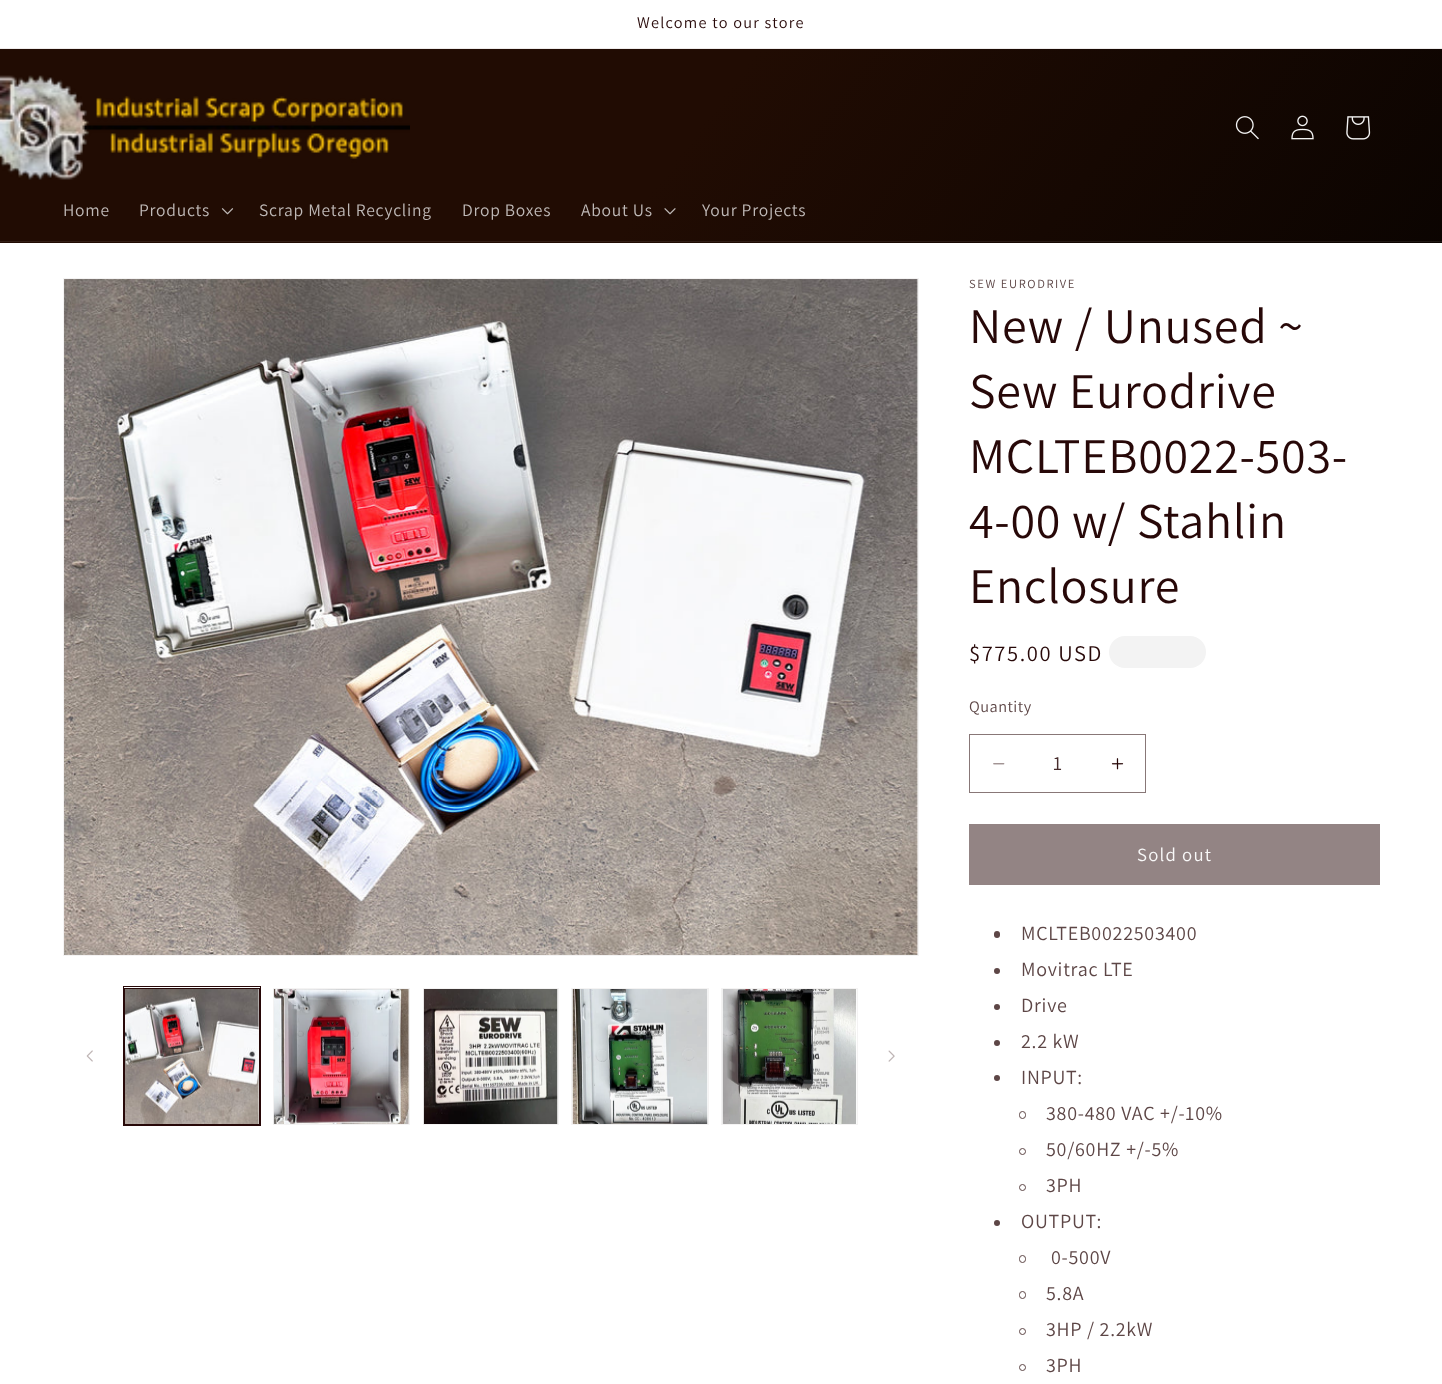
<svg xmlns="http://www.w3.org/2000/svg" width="1442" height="1384">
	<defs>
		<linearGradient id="g1" gradientUnits="userSpaceOnUse" x1="-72" y1="95" x2="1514" y2="1290"><stop offset="0.32" stop-color="#210C03" /><stop offset="0.83" stop-color="#000000" /></linearGradient>
		<linearGradient id="g2" gradientUnits="userSpaceOnUse" x1="-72" y1="95" x2="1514" y2="1290"><stop offset="0.32" stop-color="#321E16" /><stop offset="0.83" stop-color="#131313" /></linearGradient>
	</defs>
	<rect width="100%" height="100%" fill="#FFFFFF" />
	<rect x="0" y="48" width="1442" height="1" fill="#EEEBEB" />
	<text x="637" y="28" font-family="Assistant" font-size="16.25" letter-spacing="1.25" fill="#270808">Welcome to our store</text>
	<rect x="0" y="49" width="1442" height="194" fill="url(#g1)" />
	<rect x="0" y="241" width="1442" height="1" fill="url(#g2)" />
	<image x="0" y="75" width="410" height="105" href="assets/img1.png" />
	<image x="1235" y="116" width="24" height="24" href="assets/img2.png" />
	<image x="1291" y="115" width="23" height="25" href="assets/img3.png" />
	<image x="1346" y="116" width="25" height="24" href="assets/img4.png" />
	<g font-family="Assistant" font-size="17.5" letter-spacing="0.75" fill="#BFB9B7">
		<text x="63" y="216">Home</text>
		<text x="139" y="216">Products</text>
	</g>
	<image x="221" y="208" width="13" height="7" href="assets/img5.png" />
	<g font-family="Assistant" font-size="17.5" letter-spacing="0.75" fill="#BFB9B7">
		<text x="259" y="216">Scrap Metal Recycling</text>
		<text x="462" y="216">Drop Boxes</text>
		<text x="581" y="216">About Us</text>
	</g>
	<image x="664" y="208" width="12" height="7" href="assets/img6.png" />
	<text x="702" y="216" font-family="Assistant" font-size="17.5" letter-spacing="0.75" fill="#BFB9B7">Your Projects</text>
	<rect x="63.5" y="278.5" width="855" height="677" fill="none" stroke="#F4F3F3" />
	<image x="64" y="279" width="854" height="676" href="assets/img7.png" />
	<image x="86" y="1050" width="7" height="12" href="assets/img8.png" />
	<rect x="123.5" y="986.5" width="137" height="139" fill="none" stroke="#270808" />
	<rect x="124.5" y="988.5" width="135" height="136" fill="none" stroke="#270808" />
	<image x="125" y="989" width="134" height="135" href="assets/img9.png" />
	<rect x="273.5" y="988.5" width="136" height="136" fill="none" stroke="#F4F3F3" />
	<image x="273" y="989" width="136" height="135" href="assets/img10.png" />
	<rect x="423.5" y="988.5" width="135" height="136" fill="none" stroke="#F4F3F3" />
	<image x="423" y="989" width="135" height="135" href="assets/img11.png" />
	<rect x="571.5" y="988.5" width="137" height="136" fill="none" stroke="#F4F3F3" />
	<image x="572" y="989" width="136" height="135" href="assets/img12.png" />
	<rect x="721.5" y="988.5" width="136" height="136" fill="none" stroke="#F4F3F3" />
	<image x="722" y="989" width="135" height="135" href="assets/img13.png" />
	<image x="888" y="1050" width="7" height="12" href="assets/img14.png" />
	<text x="969" y="288" font-family="Assistant" font-size="12.5" letter-spacing="1.6" fill="#5D4646">SEW EURODRIVE</text>
	<g font-family="Assistant" font-size="50" letter-spacing="0.75" fill="#270808">
		<text x="969" y="343">New / Unused ~</text>
		<text x="969" y="408">Sew Eurodrive</text>
		<text x="969" y="473">MCLTEB0022-503-</text>
		<text x="969" y="538">4-00 w/ Stahlin</text>
		<text x="969" y="603">Enclosure</text>
	</g>
	<text x="969" y="661" font-family="Assistant" font-size="22.5" letter-spacing="1.6" fill="#270808">$775.00 USD</text>
	<rect x="1109" y="636" width="97" height="32" rx="16" fill="#F3F3F3" />
	<text x="969" y="712" font-family="Assistant" font-size="16.25" letter-spacing="0.5" fill="#5D4646">Quantity</text>
	<image x="993" y="763" width="12" height="2" href="assets/img15.png" />
	<image x="1111" y="758" width="13" height="12" href="assets/img16.png" />
	<rect x="969.5" y="734.5" width="176" height="58" fill="none" stroke="#887777" />
	<text x="1053" y="770" font-family="Assistant" font-size="20" fill="#472D2D">1</text>
	<rect x="969" y="824" width="411" height="61" fill="#938484" />
	<text x="1137" y="861" font-family="Assistant" font-size="18.75" letter-spacing="1.25" fill="#F9F9F9">Sold out</text>
	<rect x="994" y="931" width="6" height="7" rx="3" fill="#5D4646" />
	<text x="1021" y="940" font-family="Assistant" font-size="20" letter-spacing="0.75" fill="#5D4646">MCLTEB0022503400</text>
	<circle cx="997" cy="971" r="3" fill="#5D4646" />
	<text x="1021" y="976" font-family="Assistant" font-size="20" letter-spacing="0.75" fill="#5D4646">Movitrac LTE</text>
	<circle cx="997" cy="1007" r="3" fill="#5D4646" />
	<text x="1021" y="1012" font-family="Assistant" font-size="20" letter-spacing="0.75" fill="#5D4646">Drive</text>
	<circle cx="997" cy="1043" r="3" fill="#5D4646" />
	<text x="1021" y="1048" font-family="Assistant" font-size="20" letter-spacing="0.75" fill="#5D4646">2.2 kW</text>
	<circle cx="997" cy="1078" r="3" fill="#5D4646" />
	<text x="1021" y="1084" font-family="Assistant" font-size="20" letter-spacing="0.75" fill="#5D4646">INPUT:</text>
	<rect x="1019.5" y="1111.5" width="6" height="7" rx="3" fill="none" stroke="#5D4646" />
	<text x="1046" y="1120" font-family="Assistant" font-size="20" letter-spacing="0.75" fill="#5D4646">380-480 VAC +/-10%</text>
	<circle cx="1022.5" cy="1151.5" r="3" fill="none" stroke="#5D4646" />
	<text x="1046" y="1156" font-family="Assistant" font-size="20" letter-spacing="0.75" fill="#5D4646">50/60HZ +/-5%</text>
	<circle cx="1022.5" cy="1187.5" r="3" fill="none" stroke="#5D4646" />
	<text x="1046" y="1192" font-family="Assistant" font-size="20" letter-spacing="0.75" fill="#5D4646">3PH</text>
	<circle cx="997" cy="1223" r="3" fill="#5D4646" />
	<text x="1021" y="1228" font-family="Assistant" font-size="20" letter-spacing="0.75" fill="#5D4646">OUTPUT:</text>
	<rect x="1019.5" y="1255.5" width="6" height="7" rx="3" fill="none" stroke="#5D4646" />
	<text x="1051" y="1264" font-family="Assistant" font-size="20" letter-spacing="0.75" fill="#5D4646">0-500V</text>
	<rect x="1019.5" y="1291.5" width="6" height="7" rx="3" fill="none" stroke="#5D4646" />
	<text x="1046" y="1300" font-family="Assistant" font-size="20" letter-spacing="0.75" fill="#5D4646">5.8A</text>
	<circle cx="1022.5" cy="1331.5" r="3" fill="none" stroke="#5D4646" />
	<text x="1046" y="1336" font-family="Assistant" font-size="20" letter-spacing="0.75" fill="#5D4646">3HP / 2.2kW</text>
	<circle cx="1022.5" cy="1367.5" r="3" fill="none" stroke="#5D4646" />
	<text x="1046" y="1372" font-family="Assistant" font-size="20" letter-spacing="0.75" fill="#5D4646">3PH</text>
</svg>
